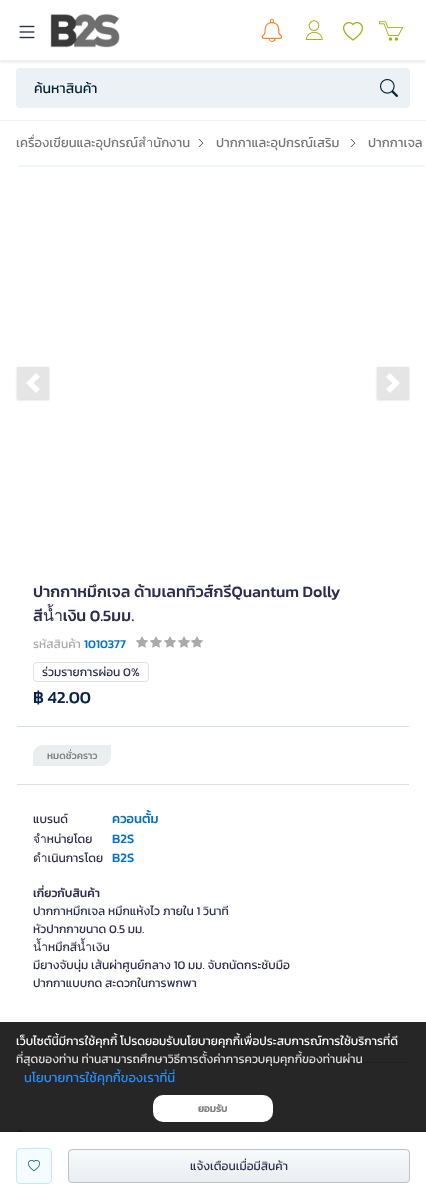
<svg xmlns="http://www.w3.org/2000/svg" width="426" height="1200">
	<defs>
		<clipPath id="clip1"><rect x="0" y="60" width="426" height="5" /></clipPath>
		<clipPath id="clip2"><rect x="34" y="78" width="328" height="21" /></clipPath>
		<clipPath id="clip3"><rect x="68" y="1149" width="342" height="34" rx="4" /></clipPath>
		<linearGradient id="g1" gradientUnits="userSpaceOnUse" x1="70" y1="1150" x2="70" y2="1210"><stop offset="0" stop-color="#F7F9FA" /><stop offset="1" stop-color="#DEE4E7" /></linearGradient>
	</defs>
	<rect width="100%" height="100%" fill="#EBF1F4" />
	<rect x="0" y="0" width="426" height="120" fill="#FFFFFF" />
	<image x="19" y="25" width="16" height="14" href="assets/img1.png" />
	<image x="50" y="13" width="70" height="35" href="assets/img2.png" />
	<image x="261" y="18" width="21" height="24" href="assets/img3.png" />
	<image x="305" y="20" width="18" height="20" href="assets/img4.png" />
	<image x="343" y="22" width="20" height="19" href="assets/img5.png" />
	<image x="379" y="21" width="25" height="20" href="assets/img6.png" />
	<g clip-path="url(#clip1)">
		<rect x="0" y="53" width="426" height="10" fill="#EFEFEF" filter="blur(1px)" />
	</g>
	<rect x="16" y="68" width="394" height="40" rx="4" fill="#EBF1F4" />
	<g clip-path="url(#clip2)">
		<text x="34" y="93" font-family="Kanit" font-size="14" fill="#002433">ค้นหาสินค้า</text>
	</g>
	<image x="380" y="79" width="18" height="18" href="assets/img7.png" />
	<rect x="0" y="121" width="426" height="1011" fill="#FFFFFF" />
	<rect x="18" y="165" width="407" height="2" fill="#F2F6F8" />
	<text x="16" y="147" font-family="Kanit" font-size="13" fill="#777777">เครื่องเขียนและอุปกรณ์สำนักงาน</text>
	<image x="198" y="139" width="6" height="8" href="assets/img8.png" />
	<text x="216" y="147" font-family="Kanit" font-size="13" fill="#777777">ปากกาและอุปกรณ์เสริม</text>
	<image x="350" y="139" width="6" height="8" href="assets/img8.png" />
	<text x="368" y="147" font-family="Kanit" font-size="13" fill="#777777">ปากกาเจล</text>
	<rect x="17" y="368" width="32" height="32" fill="#D5D5D5" filter="blur(1px)" />
	<rect x="17" y="367" width="32" height="32" fill="#E5E5E5" />
	<path d="M36 373L26 383L36 393L40 389L33.5 383L40 377Z" fill="#FFFFFF" />
	<rect x="377" y="368" width="32" height="32" fill="#D5D5D5" filter="blur(1px)" />
	<rect x="377" y="367" width="32" height="32" fill="#E5E5E5" />
	<path d="M390 373L386 377L392.5 383L386 389L390 393L400 383Z" fill="#FFFFFF" />
	<rect x="17" y="1062" width="392" height="1" fill="#D8E1E5" />
	<g font-family="Kanit" font-size="16" font-weight="500" fill="#2C2D4E">
		<text x="33" y="597">ปากกาหมึกเจล ด้ามเลททิวส์กรีQuantum Dolly</text>
		<text x="33" y="621">สีน้ำเงิน 0.5มม.</text>
	</g>
	<text x="33" y="648" font-family="Kanit" font-size="12" fill="#AAAAAA">รหัสสินค้า</text>
	<text x="84" y="648" font-family="Kanit" font-size="12" font-weight="500" fill="#0171CD">1010377</text>
	<image x="136" y="636" width="12" height="12" href="assets/img9.png" />
	<image x="150" y="636" width="12" height="12" href="assets/img9.png" />
	<image x="164" y="636" width="12" height="12" href="assets/img9.png" />
	<image x="178" y="636" width="12" height="12" href="assets/img9.png" />
	<image x="191" y="636" width="12" height="12" href="assets/img9.png" />
	<rect x="33.5" y="662.5" width="115" height="19" rx="3.5" fill="none" stroke="#DEE2E6" />
	<text x="42" y="676" font-family="Kanit" font-size="12" fill="#2C2D4E">ร่วมรายการผ่อน 0%</text>
	<text x="33" y="703" font-family="Kanit" font-size="17" font-weight="500" fill="#072448">฿ 42.00</text>
	<rect x="17" y="726" width="392" height="1" fill="#D8E1E5" />
	<rect x="17" y="784" width="392" height="1" fill="#D8E1E5" />
	<path d="M43 745H111V756C111 761.5 106.5 766 101 766H33V755C33 749.5 37.5 745 43 745Z" fill="#EBEEEF" />
	<text x="47" y="759" font-family="Kanit" font-size="10" font-weight="500" fill="#808080">หมดชั่วคราว</text>
	<text x="33" y="823" font-family="Kanit" font-size="12" fill="#2C2D4E">แบรนด์</text>
	<text x="112" y="823" font-family="Kanit" font-size="13" font-weight="500" fill="#0171CD">ควอนตั้ม</text>
	<text x="33" y="843" font-family="Kanit" font-size="12" fill="#2C2D4E">จำหน่ายโดย</text>
	<text x="112" y="843" font-family="Kanit" font-size="13" font-weight="500" fill="#0171CD">B2S</text>
	<text x="33" y="862" font-family="Kanit" font-size="12" fill="#2C2D4E">ดำเนินการโดย</text>
	<text x="112" y="862" font-family="Kanit" font-size="13" font-weight="500" fill="#0171CD">B2S</text>
	<text x="33" y="897" font-family="Kanit" font-size="12" font-weight="500" fill="#2C2D4E">เกี่ยวกับสินค้า</text>
	<g font-family="Kanit" font-size="12" fill="#2C2D4E">
		<text x="33" y="915">ปากกาหมึกเจล หมึกแห้งไว ภายใน 1 วินาที</text>
		<text x="33" y="933">หัวปากกาขนาด 0.5 มม.</text>
		<text x="33" y="951">น้ำหมึกสีน้ำเงิน</text>
		<text x="33" y="969">มียางจับนุ่ม เส้นผ่าศูนย์กลาง 10 มม. จับถนัดกระชับมือ</text>
		<text x="33" y="987">ปากกาแบบกด สะดวกในการพกพา</text>
	</g>
	<circle cx="20" cy="1132" r="2" fill="#2C2D4E" />
	<rect x="-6" y="1130" width="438" height="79" fill="#D5DBDE" filter="blur(3px)" />
	<rect x="0" y="1132" width="426" height="68" fill="#FFFFFF" />
	<rect x="16.5" y="1148.5" width="35" height="35" rx="3.5" fill="#F5FCFF" stroke="#C1E9F8" />
	<image x="28" y="1160" width="12" height="12" href="assets/img10.png" />
	<g clip-path="url(#clip3)">
		<path d="M68 1150H410V1179C410 1181 408 1183 406 1183H72C70 1183 68 1181 68 1179Z" fill="url(#g1)" />
	</g>
	<rect x="68.5" y="1149.5" width="341" height="33" rx="3.5" fill="none" stroke="#BFC0CC" />
	<text x="190" y="1170" font-family="Kanit" font-size="12" fill="#2C2D4E">แจ้งเตือนเมื่อมีสินค้า</text>
	<rect x="0" y="1022" width="426" height="110" fill="#000000" fill-opacity="0.85" />
	<text x="16" y="1045" font-family="Kanit" font-size="12" fill="#FFFFFF">เว็บไซต์นี้มีการใช้คุกกี้ โปรดยอมรับนโยบายคุกกี้เพื่อประสบการณ์การใช้บริการที่ดี</text>
	<text x="16" y="1063" font-family="Kanit" font-size="12" fill="#DEDEDE">ที่สุดของท่าน ท่านสามารถศึกษาวิธีการตั้งค่าการควบคุมคุกกี้ของท่านผ่าน</text>
	<text x="24" y="1082" font-family="Kanit" font-size="13" fill="#268FFF">นโยบายการใช้คุกกี้ของเราที่นี่</text>
	<rect x="153" y="1095" width="120" height="27" rx="10" fill="#FFFFFF" />
	<text x="198" y="1112" font-family="Kanit" font-size="10" font-weight="700" fill="#808080">ยอมรับ</text>
</svg>
